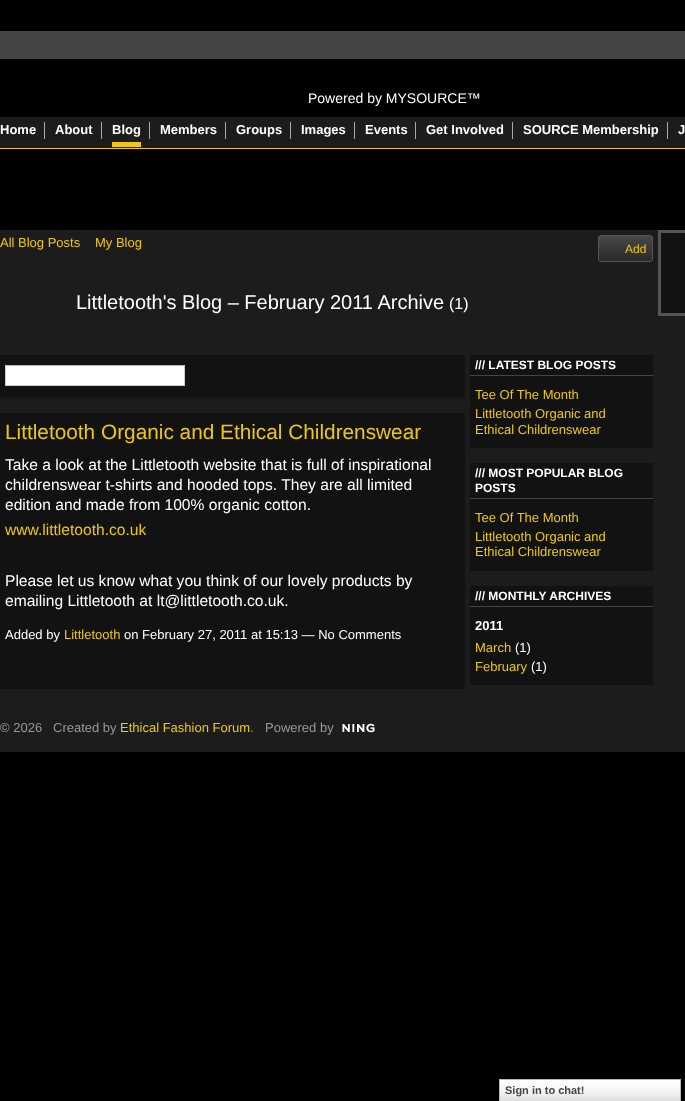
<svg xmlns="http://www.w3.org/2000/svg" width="685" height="1101">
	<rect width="100%" height="100%" fill="#000000" />
	<rect x="0" y="31" width="685" height="28" fill="#444444" />
	<text x="308" y="103" font-family="Liberation Sans" font-size="14" fill="#FFFFFF">Powered by MYSOURCE™</text>
	<rect x="0" y="117" width="685" height="31" fill="#1C1C1C" />
	<rect x="0" y="148" width="685" height="1" fill="#EDC811" />
	<rect x="44" y="122" width="1" height="17" fill="#AAAAAA" />
	<text x="0" y="134" font-family="Liberation Sans" font-size="13" font-weight="700" fill="#FFFFFF">Home</text>
	<rect x="101" y="122" width="1" height="17" fill="#AAAAAA" />
	<text x="55" y="134" font-family="Liberation Sans" font-size="13" font-weight="700" fill="#FFFFFF">About</text>
	<rect x="149" y="122" width="1" height="17" fill="#AAAAAA" />
	<text x="112" y="134" font-family="Liberation Sans" font-size="13" font-weight="700" fill="#FFFFFF">Blog</text>
	<rect x="112" y="142" width="29" height="5" fill="#EDC811" />
	<rect x="225" y="122" width="1" height="17" fill="#AAAAAA" />
	<text x="160" y="134" font-family="Liberation Sans" font-size="13" font-weight="700" fill="#FFFFFF">Members</text>
	<rect x="290" y="122" width="1" height="17" fill="#AAAAAA" />
	<text x="236" y="134" font-family="Liberation Sans" font-size="13" font-weight="700" fill="#FFFFFF">Groups</text>
	<rect x="354" y="122" width="1" height="17" fill="#AAAAAA" />
	<text x="301" y="134" font-family="Liberation Sans" font-size="13" font-weight="700" fill="#FFFFFF">Images</text>
	<rect x="415" y="122" width="1" height="17" fill="#AAAAAA" />
	<text x="365" y="134" font-family="Liberation Sans" font-size="13" font-weight="700" fill="#FFFFFF">Events</text>
	<rect x="512" y="122" width="1" height="17" fill="#AAAAAA" />
	<text x="426" y="134" font-family="Liberation Sans" font-size="13" font-weight="700" fill="#FFFFFF">Get Involved</text>
	<rect x="667" y="122" width="1" height="17" fill="#AAAAAA" />
	<g font-family="Liberation Sans" font-size="13" font-weight="700" fill="#FFFFFF">
		<text x="523" y="134">SOURCE Membership</text>
		<text x="678" y="134">J</text>
	</g>
	<rect x="0" y="230" width="685" height="522" fill="#1C1C1C" />
	<g font-family="Liberation Sans" font-size="13" fill="#EDC811">
		<text x="0" y="247">All Blog Posts</text>
		<text x="95" y="247">My Blog</text>
	</g>
	<image x="598" y="236" width="55" height="26" href="assets/img1.png" />
	<rect x="598.5" y="235.5" width="54" height="26" rx="2.5" fill="none" stroke="#555555" />
	<text x="625" y="253" font-family="Liberation Sans" font-size="12" fill="#EDC811">Add</text>
	<text x="76" y="309" font-family="Liberation Sans" font-size="20" fill="#FFFFFF">Littletooth's Blog – February 2011 Archive</text>
	<text x="449" y="309" font-family="Liberation Sans" font-size="16" fill="#FFFFFF">(1)</text>
	<rect x="0" y="355" width="465" height="43" fill="#121212" />
	<rect x="6" y="366" width="178" height="19" fill="#FFFFFF" />
	<rect x="5" y="365" width="180" height="1" fill="#BBBBBB" />
	<rect x="184" y="365" width="1" height="21" fill="#CCCCCC" />
	<rect x="5" y="385" width="180" height="1" fill="#CCCCCC" />
	<rect x="5" y="365" width="1" height="21" fill="#CCCCCC" />
	<rect x="0" y="413" width="465" height="276" fill="#121212" />
	<text x="5" y="439" font-family="Liberation Sans" font-size="20.8" fill="#EDC811">Littletooth Organic and Ethical Childrenswear</text>
	<g font-family="Liberation Sans" font-size="15.6" fill="#FFFFFF">
		<text x="5" y="470">Take a look at the Littletooth website that is full of inspirational</text>
		<text x="5" y="490">childrenswear t-shirts and hooded tops. They are all limited</text>
		<text x="5" y="510">edition and made from 100% organic cotton.</text>
	</g>
	<text x="5" y="535" font-family="Liberation Sans" font-size="15.6" fill="#EDC811">www.littletooth.co.uk</text>
	<g font-family="Liberation Sans" font-size="15.6" fill="#FFFFFF">
		<text x="5" y="586">Please let us know what you think of our lovely products by</text>
		<text x="5" y="606">emailing Littletooth at lt@littletooth.co.uk.</text>
	</g>
	<text x="5" y="639" font-family="Liberation Sans" font-size="13" fill="#FFFFFF">Added by</text>
	<text x="64" y="639" font-family="Liberation Sans" font-size="13" fill="#EDC811">Littletooth</text>
	<text x="124" y="639" font-family="Liberation Sans" font-size="13" fill="#FFFFFF">on February 27, 2011 at 15:13 — No Comments</text>
	<rect x="470" y="355" width="183" height="93" fill="#121212" />
	<rect x="470" y="375" width="183" height="1" fill="#444444" />
	<text x="475" y="369" font-family="Liberation Sans" font-size="12" font-weight="700" fill="#FFFFFF">/// LATEST BLOG POSTS</text>
	<g font-family="Liberation Sans" font-size="13" fill="#EDC811">
		<text x="475" y="399">Tee Of The Month</text>
		<text x="475" y="418">Littletooth Organic and</text>
		<text x="475" y="434">Ethical Childrenswear</text>
	</g>
	<rect x="470" y="463" width="183" height="108" fill="#121212" />
	<rect x="470" y="498" width="183" height="1" fill="#444444" />
	<g font-family="Liberation Sans" font-size="12" font-weight="700" fill="#FFFFFF">
		<text x="475" y="477">/// MOST POPULAR BLOG</text>
		<text x="475" y="492">POSTS</text>
	</g>
	<g font-family="Liberation Sans" font-size="13" fill="#EDC811">
		<text x="475" y="522">Tee Of The Month</text>
		<text x="475" y="541">Littletooth Organic and</text>
		<text x="475" y="556">Ethical Childrenswear</text>
	</g>
	<rect x="470" y="586" width="183" height="99" fill="#121212" />
	<rect x="470" y="606" width="183" height="1" fill="#444444" />
	<text x="475" y="600" font-family="Liberation Sans" font-size="12" font-weight="700" fill="#FFFFFF">/// MONTHLY ARCHIVES</text>
	<text x="475" y="630" font-family="Liberation Sans" font-size="13" font-weight="700" fill="#FFFFFF">2011</text>
	<text x="475" y="652" font-family="Liberation Sans" font-size="13" fill="#EDC811">March</text>
	<text x="515" y="652" font-family="Liberation Sans" font-size="13" fill="#FFFFFF">(1)</text>
	<text x="475" y="671" font-family="Liberation Sans" font-size="13" fill="#EDC811">February</text>
	<text x="531" y="671" font-family="Liberation Sans" font-size="13" fill="#FFFFFF">(1)</text>
	<rect x="659.5" y="231.5" width="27" height="83" fill="#121212" stroke="#555555" stroke-width="3" />
	<g font-family="Liberation Sans" font-size="13" fill="#999999">
		<text x="0" y="732">© 2026</text>
		<text x="53" y="732">Created by</text>
	</g>
	<text x="120" y="732" font-family="Liberation Sans" font-size="13" fill="#EDC811">Ethical Fashion Forum</text>
	<g font-family="Liberation Sans" font-size="13" fill="#999999">
		<text x="250" y="732">.</text>
		<text x="265" y="732">Powered by</text>
	</g>
	<image x="342" y="723" width="33" height="10" href="assets/img2.png" />
	<image x="500" y="1080" width="180" height="21" href="assets/img3.png" />
	<rect x="499.5" y="1079.5" width="181" height="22" fill="none" stroke="#B7B7B7" />
	<text x="505" y="1094" font-family="Liberation Sans" font-size="11" font-weight="700" fill="#454545">Sign in to chat!</text>
</svg>
